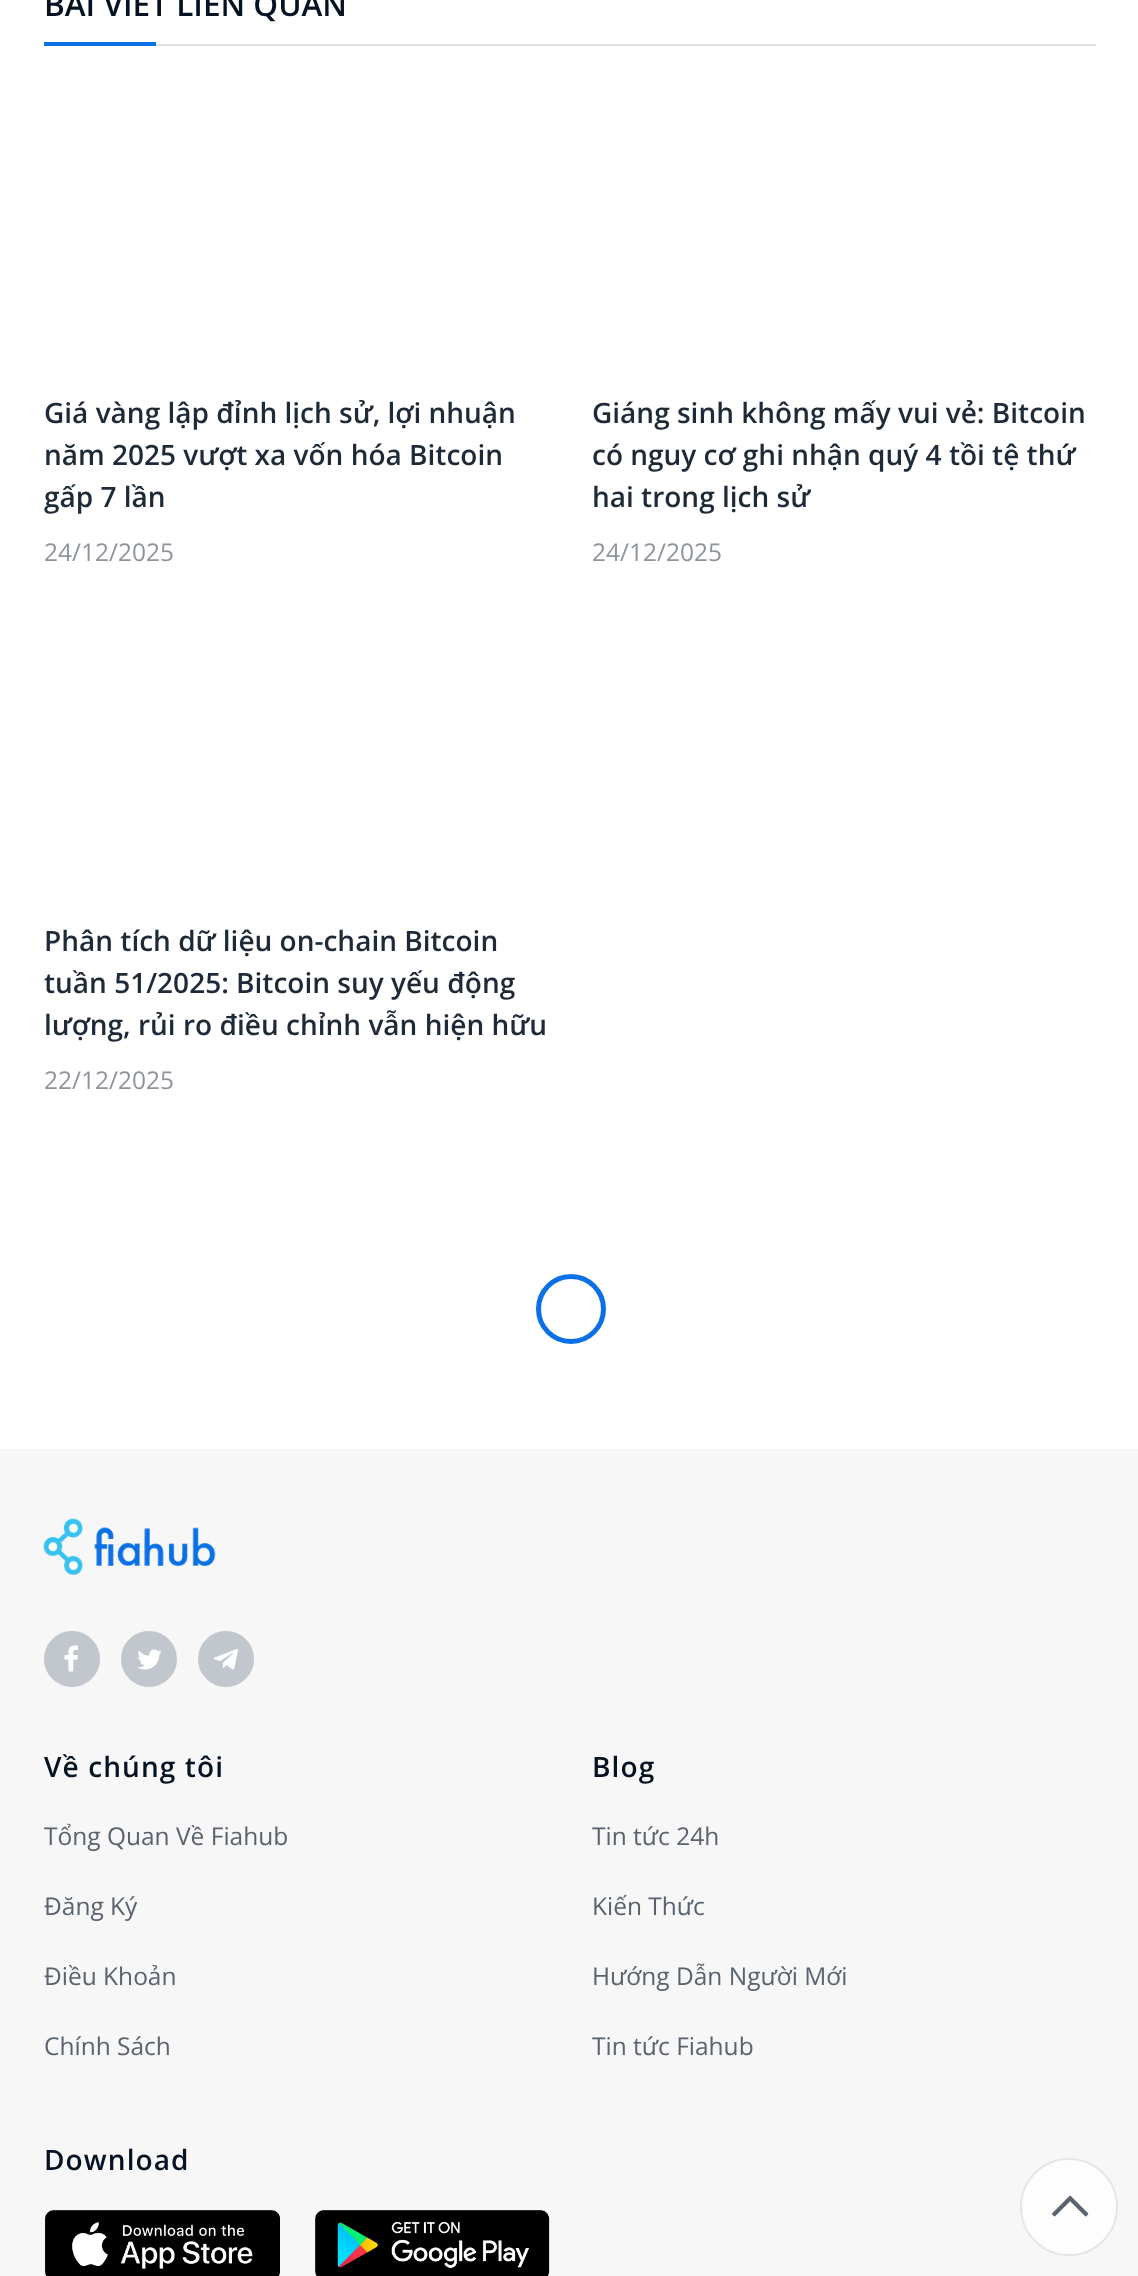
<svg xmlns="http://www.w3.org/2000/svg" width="1138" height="2276">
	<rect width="100%" height="100%" fill="#FFFFFF" />
	<rect x="156" y="44" width="940" height="2" fill="#E2E2E2" />
	<text x="44" y="16" font-family="Open Sans" font-size="31.5" font-weight="600" fill="#051222">BÀI VIẾT LIÊN QUAN</text>
	<rect x="44" y="42" width="112" height="4" fill="#0B70E5" />
	<g font-family="Open Sans" font-size="28" font-weight="600" fill="#1E2A38">
		<text x="44" y="423">Giá vàng lập đỉnh lịch sử, lợi nhuận</text>
		<text x="44" y="465">năm 2025 vượt xa vốn hóa Bitcoin</text>
		<text x="44" y="507">gấp 7 lần</text>
	</g>
	<text x="44" y="561" font-family="Open Sans" font-size="24.5" fill="#8F949C">24/12/2025</text>
	<g font-family="Open Sans" font-size="28" font-weight="600" fill="#1E2A38">
		<text x="592" y="423">Giáng sinh không mấy vui vẻ: Bitcoin</text>
		<text x="592" y="465">có nguy cơ ghi nhận quý 4 tồi tệ thứ</text>
		<text x="592" y="507">hai trong lịch sử</text>
	</g>
	<text x="592" y="561" font-family="Open Sans" font-size="24.5" fill="#8F949C">24/12/2025</text>
	<g font-family="Open Sans" font-size="28" font-weight="600" fill="#1E2A38">
		<text x="44" y="951">Phân tích dữ liệu on-chain Bitcoin</text>
		<text x="44" y="993">tuần 51/2025: Bitcoin suy yếu động</text>
		<text x="44" y="1035">lượng, rủi ro điều chỉnh vẫn hiện hữu</text>
	</g>
	<text x="44" y="1089" font-family="Open Sans" font-size="24.5" fill="#8F949C">22/12/2025</text>
	<circle cx="571" cy="1309" r="32.5" fill="none" stroke="#0B70E5" stroke-width="5" />
	<rect x="0" y="1449" width="1138" height="827" fill="#F7F7F7" />
	<image x="43" y="1518" width="173" height="57" href="assets/img1.png" />
	<circle cx="72" cy="1659" r="27" fill="#C1C7CD" stroke="#C1C7CD" stroke-width="2" />
	<image x="64" y="1645" width="14" height="27" href="assets/img2.png" />
	<circle cx="149" cy="1659" r="27" fill="#C1C7CD" stroke="#C1C7CD" stroke-width="2" />
	<image x="137" y="1649" width="25" height="21" href="assets/img3.png" />
	<circle cx="226" cy="1659" r="27" fill="#C1C7CD" stroke="#C1C7CD" stroke-width="2" />
	<image x="213" y="1649" width="25" height="21" href="assets/img4.png" />
	<text x="44" y="1777" font-family="Open Sans" font-size="28" font-weight="600" letter-spacing="1.1" fill="#051222">Về chúng tôi</text>
	<g font-family="Open Sans" font-size="24.5" fill="#5A626D">
		<text x="44" y="1845">Tổng Quan Về Fiahub</text>
		<text x="44" y="1915">Đăng Ký</text>
		<text x="44" y="1985">Điều Khoản</text>
		<text x="44" y="2055">Chính Sách</text>
	</g>
	<text x="592" y="1777" font-family="Open Sans" font-size="28" font-weight="600" letter-spacing="1.1" fill="#051222">Blog</text>
	<g font-family="Open Sans" font-size="24.5" fill="#5A626D">
		<text x="592" y="1845">Tin tức 24h</text>
		<text x="592" y="1915">Kiến Thức</text>
		<text x="592" y="1985">Hướng Dẫn Người Mới</text>
		<text x="592" y="2055">Tin tức Fiahub</text>
	</g>
	<text x="44" y="2170" font-family="Open Sans" font-size="28" font-weight="600" letter-spacing="1.1" fill="#051222">Download</text>
	<image x="45" y="2210" width="235" height="66" href="assets/img5.png" />
	<image x="315" y="2210" width="235" height="66" href="assets/img6.png" />
	<circle cx="1069" cy="2207" r="49" fill="#FDFDFD" />
	<circle cx="1069" cy="2207" r="48" fill="none" stroke="#071B3C" stroke-opacity="0.1" stroke-width="2" />
	<image x="1052" y="2195" width="37" height="22" href="assets/img7.png" />
</svg>
